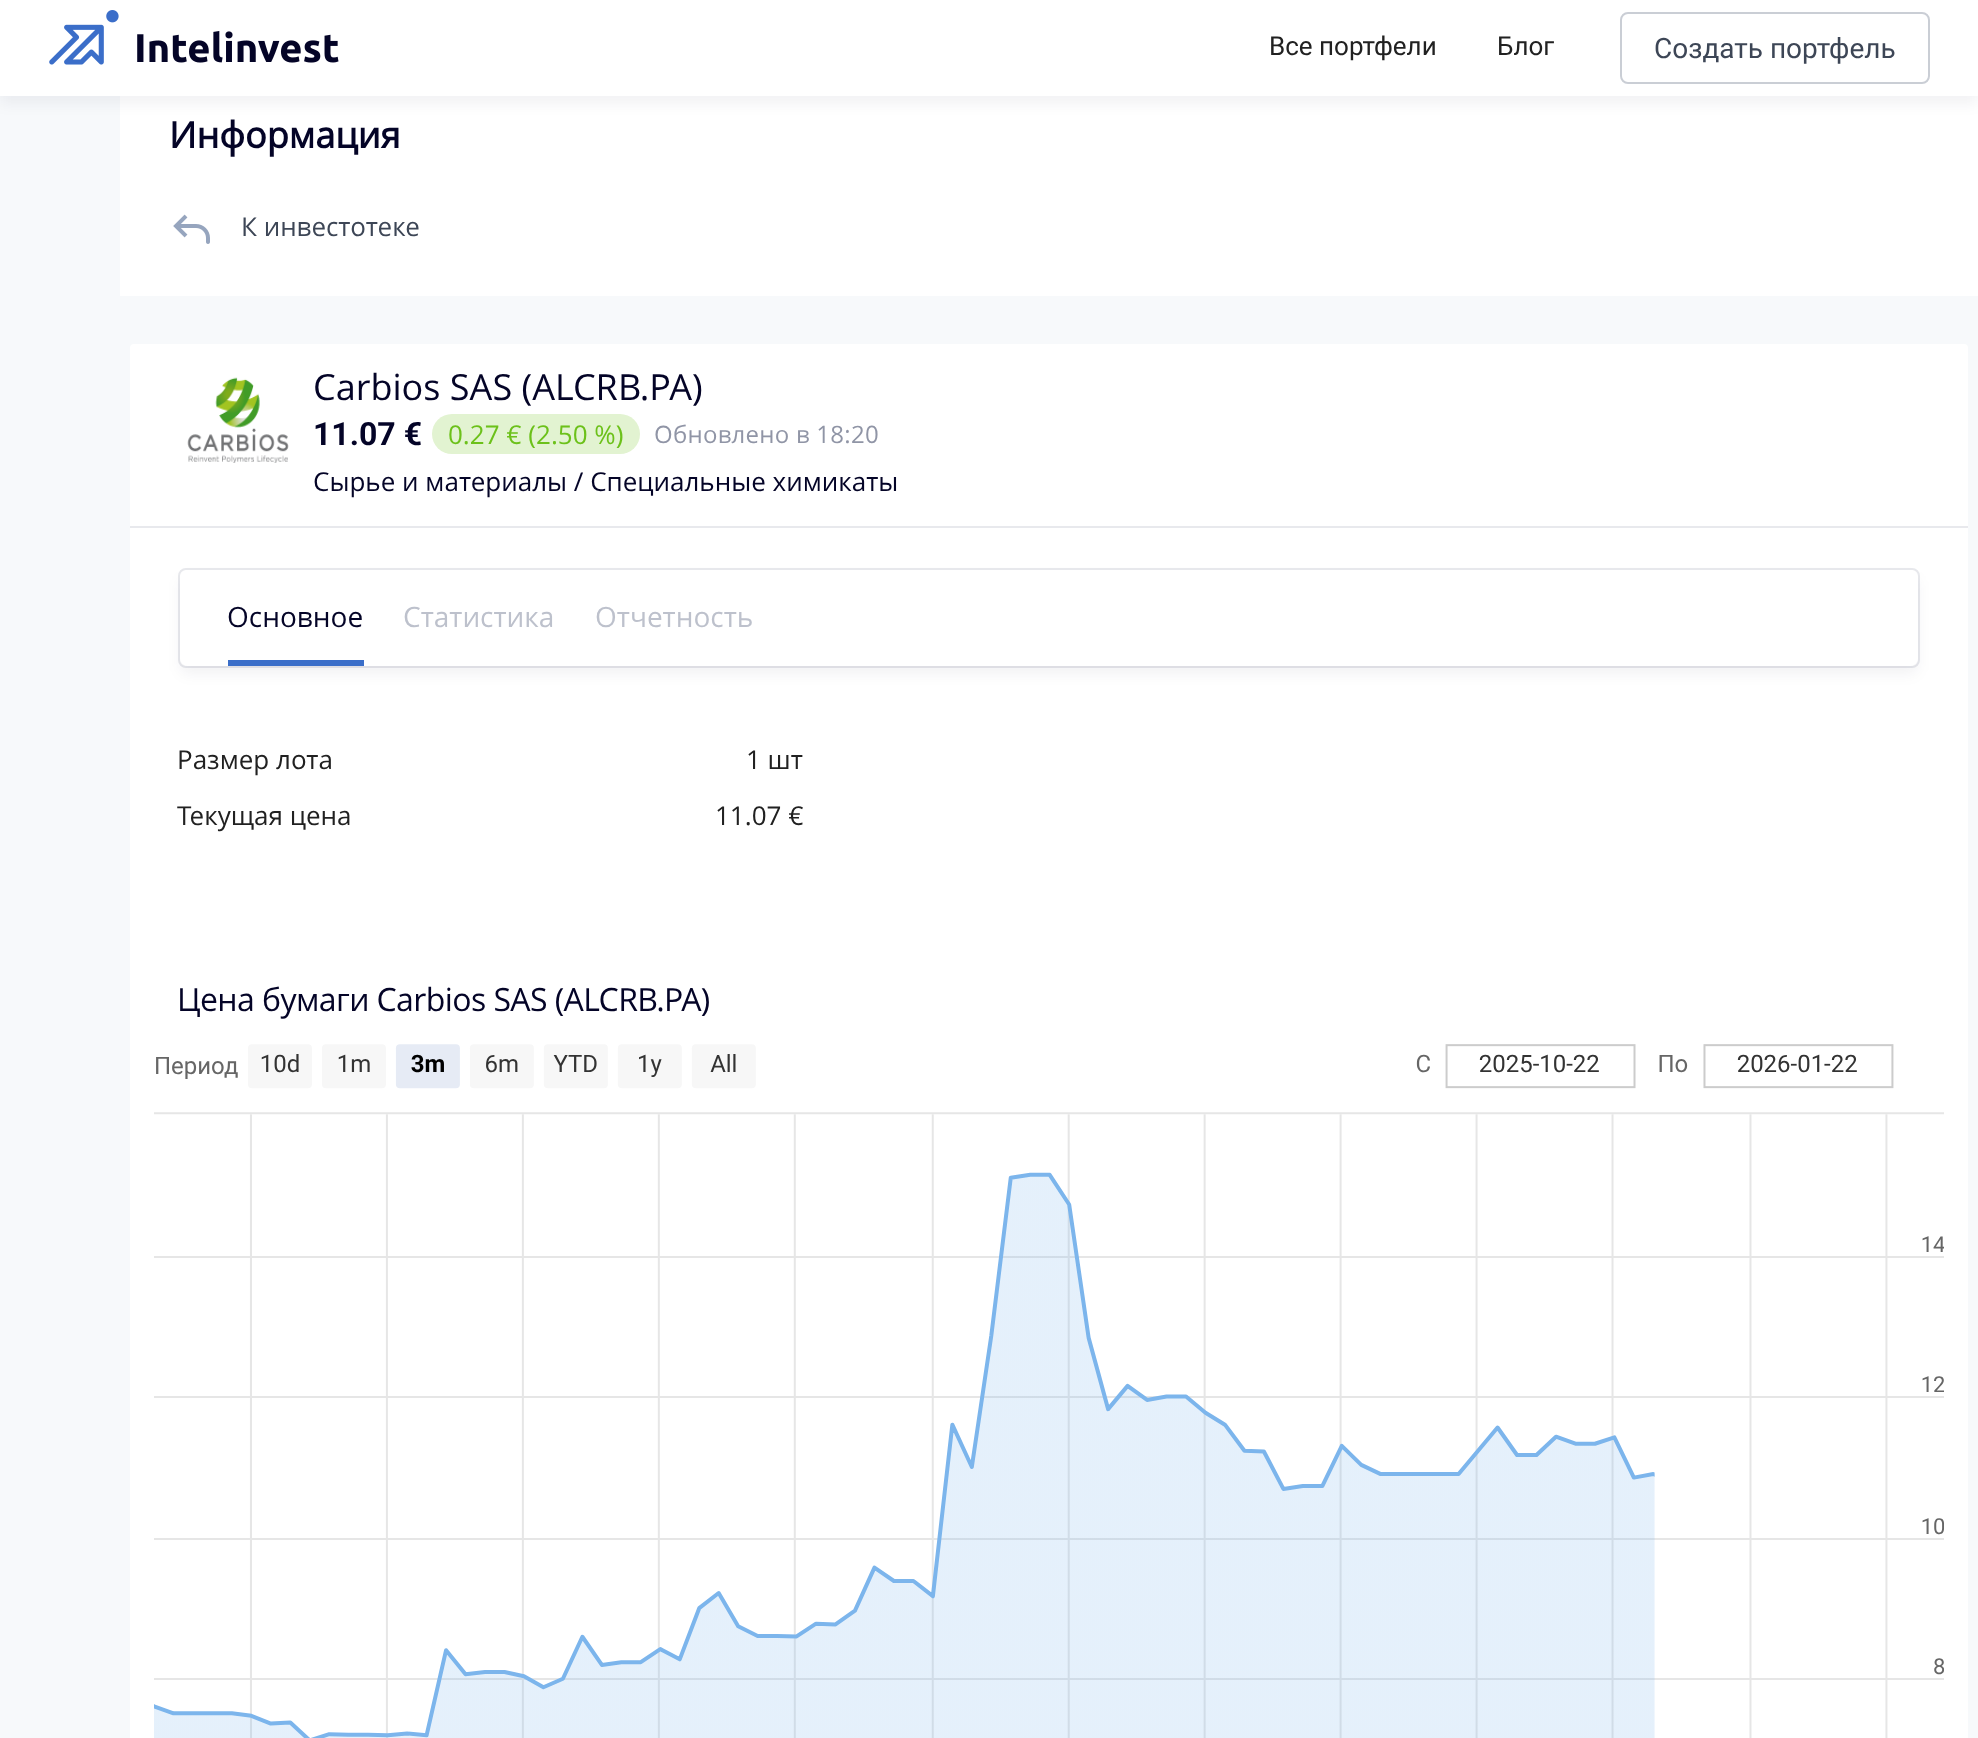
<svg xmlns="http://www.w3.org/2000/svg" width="1978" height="1738">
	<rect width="100%" height="100%" fill="#F7F9FB" />
	<rect x="120" y="96" width="1858" height="200" fill="#FFFFFF" />
	<rect x="0" y="8" width="1978" height="96" fill="#040427" fill-opacity="0.05" filter="blur(7px)" />
	<rect x="0" y="0" width="1978" height="96" fill="#FFFFFF" />
	<image x="49" y="10" width="290" height="55" href="assets/img1.png" />
	<g font-family="Roboto" font-size="26" fill="#212121">
		<text x="1269" y="55">Все портфели</text>
		<text x="1497" y="55">Блог</text>
	</g>
	<rect x="1621" y="13" width="308" height="70" rx="7" fill="none" stroke="#CACED5" stroke-width="2" />
	<text x="1654" y="58" font-family="Roboto" font-size="28" fill="#3D4656">Создать портфель</text>
	<text x="169" y="148" font-family="Open Sans" font-size="36" font-weight="700" fill="#040427">Информация</text>
	<image x="173" y="214" width="37" height="30" href="assets/img2.png" />
	<text x="241" y="236" font-family="Open Sans" font-size="26" fill="#3D4656">К инвестотеке</text>
	<rect x="130" y="344" width="1838" height="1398" rx="4" fill="#FFFFFF" />
	<rect x="130" y="526" width="1838" height="2" fill="#E8E9ED" />
	<image x="187" y="377" width="102" height="86" href="assets/img3.png" />
	<text x="313" y="400" font-family="Open Sans" font-size="36" fill="#040427">Carbios SAS (ALCRB.PA)</text>
	<text x="313" y="445" font-family="Roboto" font-size="32" font-weight="700" fill="#040427">11.07 €</text>
	<rect x="432" y="414" width="208" height="40" rx="20" fill="#E2F3D1" />
	<text x="448" y="444" font-family="Open Sans" font-size="26" fill="#6CC11A">0.27 € (2.50 %)</text>
	<text x="654" y="443" font-family="Open Sans" font-size="24" letter-spacing="0.25" fill="#9095A6">Обновлено в 18:20</text>
	<text x="313" y="491" font-family="Open Sans" font-size="26" fill="#040427">Сырье и материалы / Специальные химикаты</text>
	<rect x="179" y="569" width="1740" height="98" rx="7" fill="none" stroke="#E8E9ED" stroke-width="2" />
	<rect x="180" y="578" width="1738" height="96" rx="8" fill="#040427" fill-opacity="0.05" filter="blur(7px)" />
	<rect x="180" y="570" width="1738" height="96" rx="8" fill="#FFFFFF" />
	<text x="227" y="627" font-family="Open Sans" font-size="28" fill="#040427">Основное</text>
	<rect x="228" y="660" width="136" height="6" fill="#3B6EC9" />
	<g font-family="Open Sans" font-size="28" fill="#BDC1CC">
		<text x="403" y="627">Статистика</text>
		<text x="595" y="627">Отчетность</text>
	</g>
	<g font-family="Open Sans" font-size="26" fill="#212121">
		<text x="177" y="769">Размер лота</text>
		<text x="746" y="769">1 шт</text>
		<text x="177" y="825">Текущая цена</text>
		<text x="715" y="825">11.07 €</text>
	</g>
	<text x="177" y="1011" font-family="Open Sans" font-size="32" letter-spacing="-0.6" fill="#040427">Цена бумаги Carbios SAS (ALCRB.PA)</text>
	<image x="154" y="1044" width="1790" height="694" href="assets/img4.png" />
</svg>
